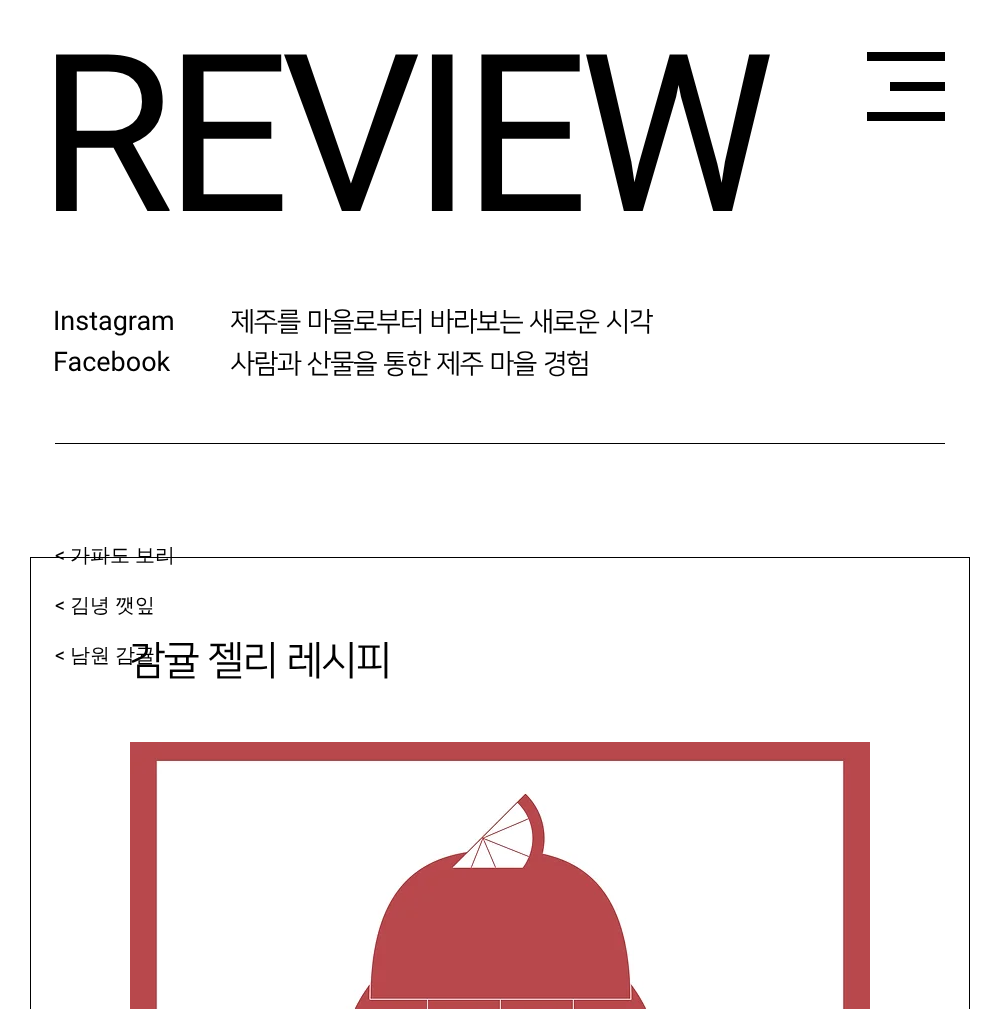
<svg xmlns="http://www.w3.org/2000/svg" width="1000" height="1009">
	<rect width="100%" height="100%" fill="#FFFFFF" />
	<text x="38" y="211" font-family="Roboto" font-size="220" letter-spacing="-8.75" fill="#000000">REVIEW</text>
	<g font-family="Roboto" font-size="27" fill="#000000">
		<text x="53" y="330">Instagram</text>
		<text x="53" y="371">Facebook</text>
	</g>
	<g font-family="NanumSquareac" font-size="27" fill="#000000">
		<text x="231" y="330">제주를 마을로부터 바라보는 새로운 시각</text>
		<text x="231" y="372">사람과 산물을 통한 제주 마을 경험</text>
	</g>
	<rect x="55" y="443" width="890" height="1" fill="#000000" />
	<rect x="867" y="52" width="78" height="9" fill="#000000" />
	<rect x="890" y="82" width="55" height="9" fill="#000000" />
	<rect x="867" y="112" width="78" height="9" fill="#000000" />
	<rect x="30.5" y="557.5" width="939" height="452" fill="none" stroke="#000000" />
	<text x="55" y="562" font-family="Roboto" font-size="20" fill="#000000">&lt;</text>
	<text x="70" y="562" word-spacing="-1" font-family="WenQuanYi Zen Hei" font-size="20" font-weight="500" fill="#000000">가파도 보리</text>
	<text x="55" y="612" font-family="Roboto" font-size="20" fill="#000000">&lt;</text>
	<text x="70" y="612" word-spacing="-1" font-family="WenQuanYi Zen Hei" font-size="20" font-weight="500" fill="#000000">김녕 깻잎</text>
	<text x="55" y="662" font-family="Roboto" font-size="20" fill="#000000">&lt;</text>
	<text x="130" y="673" font-family="NanumSquareac" font-size="40" fill="#000000">감귤 젤리 레시피</text>
	<text x="70" y="662" word-spacing="-1" font-family="WenQuanYi Zen Hei" font-size="20" font-weight="500" fill="#000000">남원 감귤</text>
	<image x="130" y="742" width="740" height="267" href="assets/img1.png" />
</svg>
